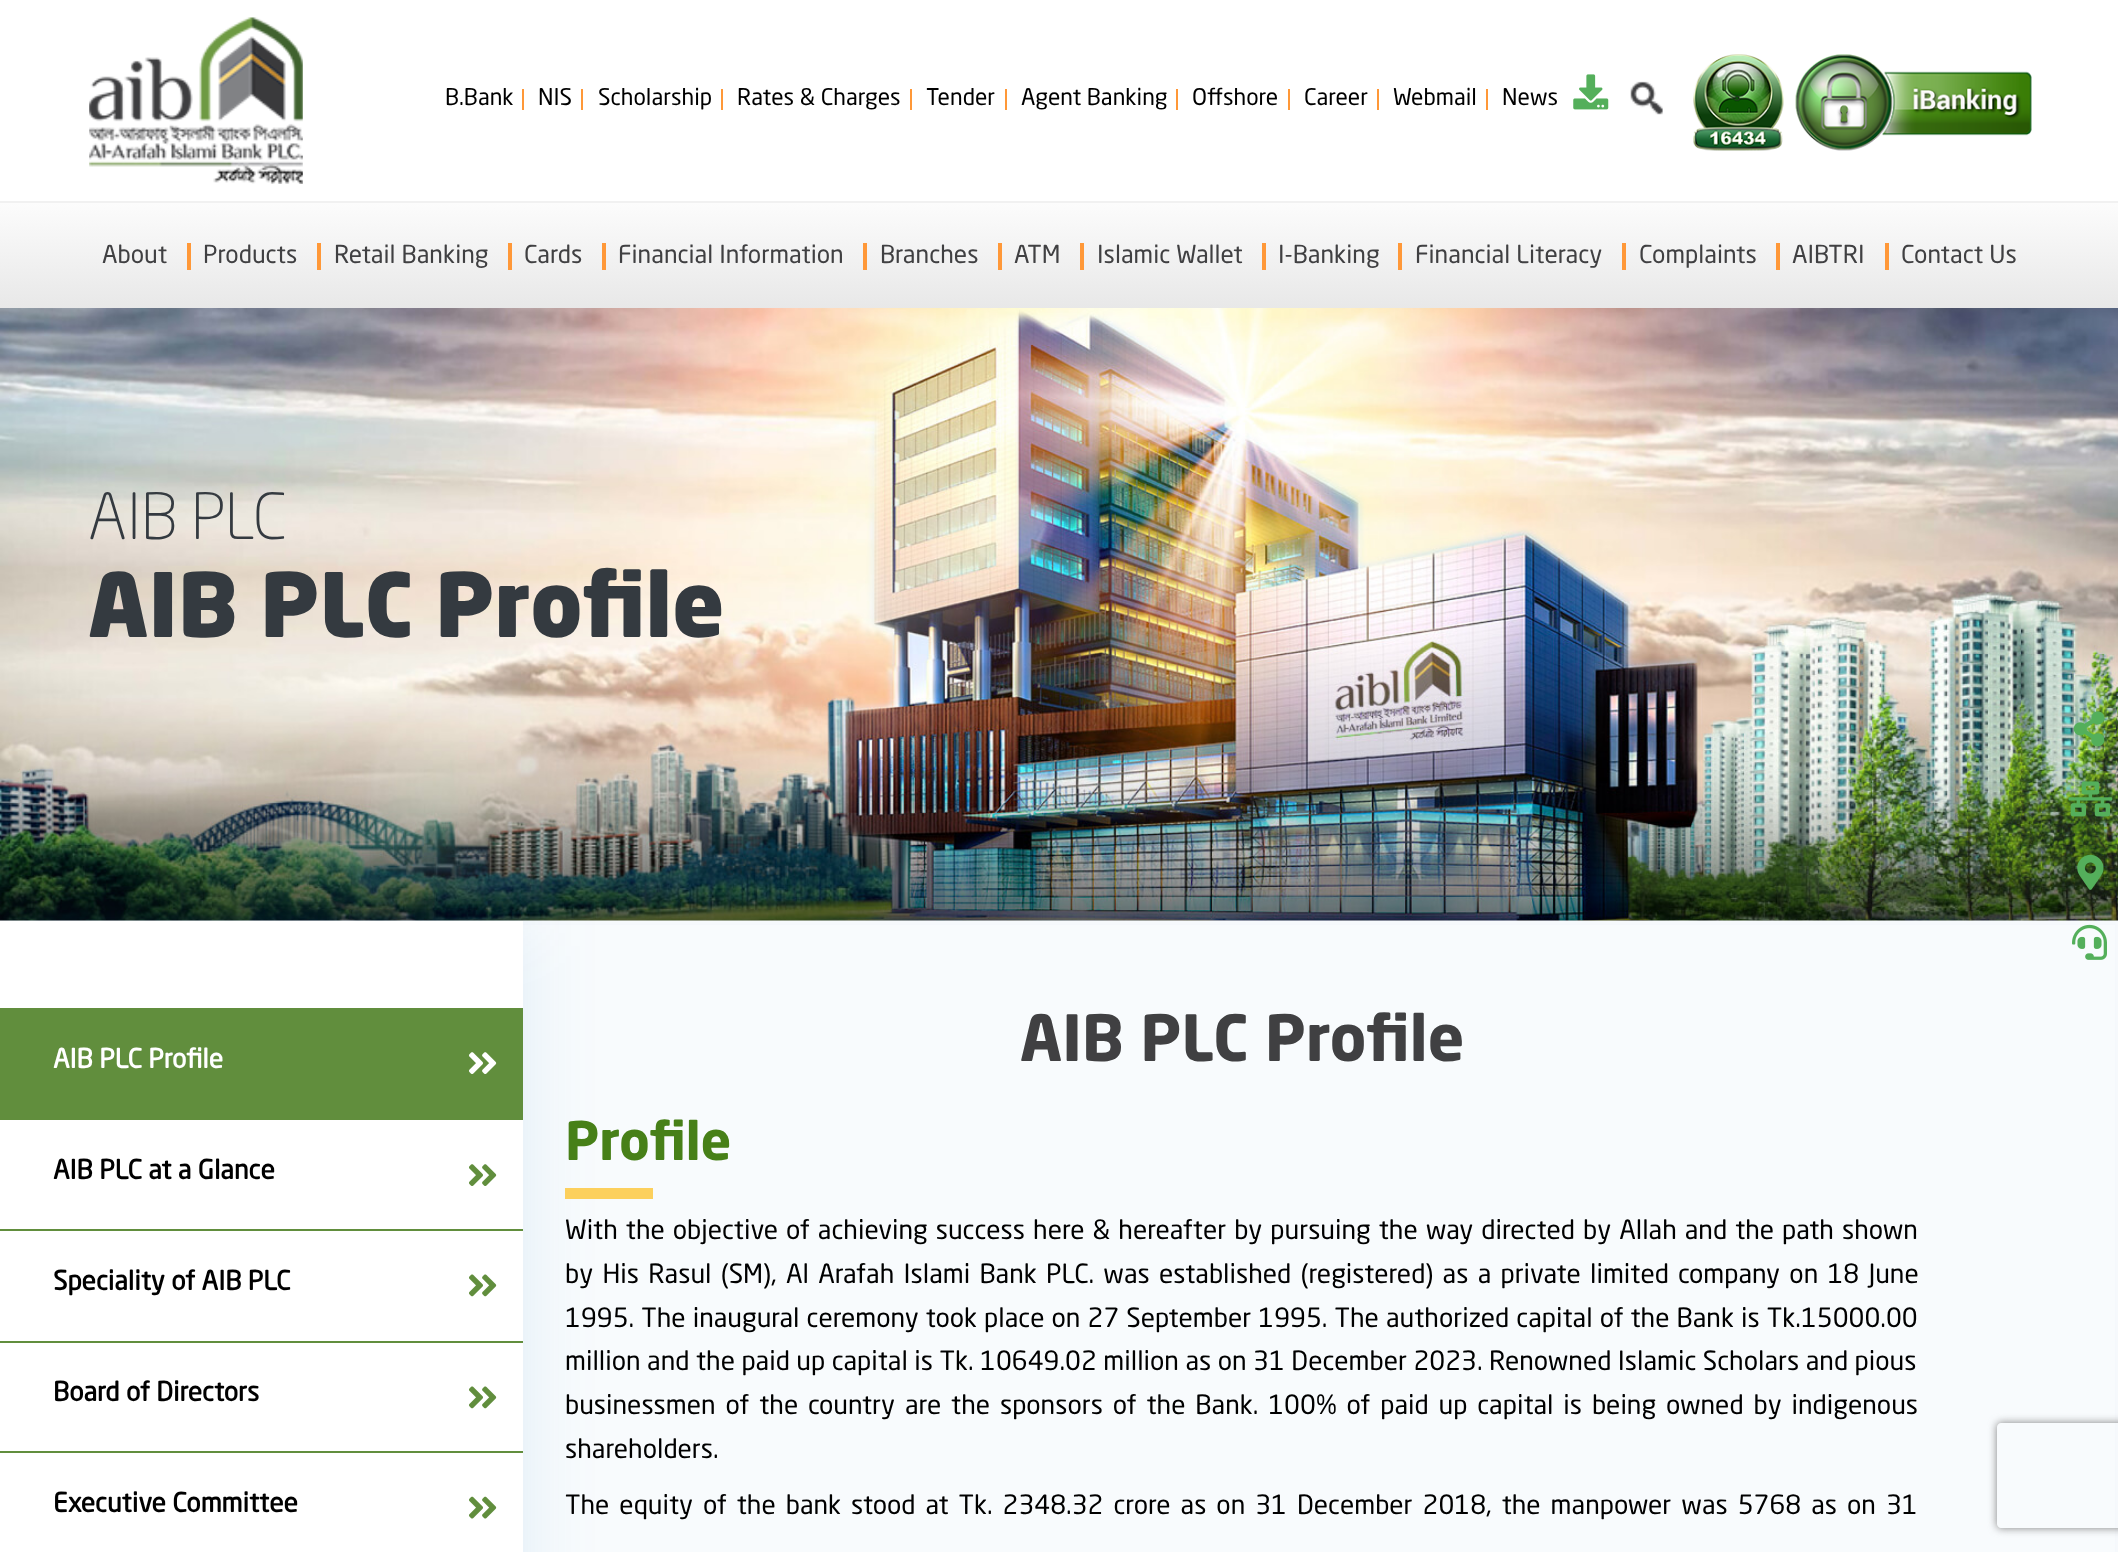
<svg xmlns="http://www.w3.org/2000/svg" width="2118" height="1552">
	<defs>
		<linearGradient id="g1" gradientUnits="userSpaceOnUse" x1="1060" y1="203" x2="1060" y2="308"><stop offset="0" stop-color="#FCFCFC" /><stop offset="1" stop-color="#E8E8E8" /></linearGradient>
		<clipPath id="clip1"><path d="M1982 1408H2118V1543H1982ZM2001 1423H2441C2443 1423 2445 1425 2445 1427V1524C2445 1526 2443 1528 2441 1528H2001C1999 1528 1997 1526 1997 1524V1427C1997 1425 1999 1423 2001 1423Z" clip-rule="evenodd" /></clipPath>
	</defs>
	<rect width="100%" height="100%" fill="#FFFFFF" />
	<image x="89" y="17" width="214" height="167" href="assets/img1.png" />
	<rect x="522" y="89" width="2" height="21" fill="#FF9838" />
	<text x="445" y="105" font-family="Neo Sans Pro" font-size="22.75" fill="#000000">B.Bank</text>
	<rect x="581" y="89" width="2" height="21" fill="#FF9838" />
	<text x="538" y="105" font-family="Neo Sans Pro" font-size="22.75" fill="#000000">NIS</text>
	<rect x="721" y="89" width="2" height="21" fill="#FF9838" />
	<text x="598" y="105" font-family="Neo Sans Pro" font-size="22.75" fill="#000000">Scholarship</text>
	<rect x="910" y="89" width="2" height="21" fill="#FF9838" />
	<text x="737" y="105" font-family="Neo Sans Pro" font-size="22.75" fill="#000000">Rates &amp; Charges</text>
	<rect x="1005" y="89" width="2" height="21" fill="#FF9838" />
	<text x="926" y="105" font-family="Neo Sans Pro" font-size="22.75" fill="#000000">Tender</text>
	<rect x="1176" y="89" width="2" height="21" fill="#FF9838" />
	<text x="1021" y="105" font-family="Neo Sans Pro" font-size="22.75" fill="#000000">Agent Banking</text>
	<rect x="1288" y="89" width="2" height="21" fill="#FF9838" />
	<text x="1192" y="105" font-family="Neo Sans Pro" font-size="22.75" fill="#000000">Offshore</text>
	<rect x="1377" y="89" width="2" height="21" fill="#FF9838" />
	<text x="1304" y="105" font-family="Neo Sans Pro" font-size="22.75" fill="#000000">Career</text>
	<rect x="1486" y="89" width="2" height="21" fill="#FF9838" />
	<g font-family="Neo Sans Pro" font-size="22.75" fill="#000000">
		<text x="1393" y="105">Webmail</text>
		<text x="1502" y="105">News</text>
	</g>
	<image x="1573" y="74" width="36" height="36" href="assets/img2.png" />
	<image x="1630" y="81" width="33" height="34" href="assets/img3.png" />
	<image x="1693" y="54" width="91" height="97" href="assets/img4.png" />
	<image x="1795" y="54" width="237" height="97" href="assets/img5.png" />
	<rect x="0" y="203" width="2118" height="105" fill="url(#g1)" />
	<rect x="0" y="201" width="2118" height="2" fill="#F1F1F1" />
	<text x="102" y="263" font-family="Neo Sans Pro" font-size="24.5" fill="#404042">About</text>
	<rect x="187" y="243" width="4" height="27" fill="#FF9838" />
	<text x="203" y="263" font-family="Neo Sans Pro" font-size="24.5" fill="#404042">Products</text>
	<rect x="317" y="243" width="4" height="27" fill="#FF9838" />
	<text x="334" y="263" font-family="Neo Sans Pro" font-size="24.5" fill="#404042">Retail Banking</text>
	<rect x="508" y="243" width="4" height="27" fill="#FF9838" />
	<text x="524" y="263" font-family="Neo Sans Pro" font-size="24.5" fill="#404042">Cards</text>
	<rect x="602" y="243" width="4" height="27" fill="#FF9838" />
	<text x="618" y="263" font-family="Neo Sans Pro" font-size="24.5" fill="#404042">Financial Information</text>
	<rect x="863" y="243" width="4" height="27" fill="#FF9838" />
	<text x="880" y="263" font-family="Neo Sans Pro" font-size="24.5" fill="#404042">Branches</text>
	<rect x="998" y="243" width="4" height="27" fill="#FF9838" />
	<text x="1014" y="263" font-family="Neo Sans Pro" font-size="24.5" fill="#404042">ATM</text>
	<rect x="1080" y="243" width="4" height="27" fill="#FF9838" />
	<text x="1097" y="263" font-family="Neo Sans Pro" font-size="24.5" fill="#404042">Islamic Wallet</text>
	<rect x="1262" y="243" width="4" height="27" fill="#FF9838" />
	<text x="1278" y="263" font-family="Neo Sans Pro" font-size="24.5" fill="#404042">I-Banking</text>
	<rect x="1398" y="243" width="4" height="27" fill="#FF9838" />
	<text x="1415" y="263" font-family="Neo Sans Pro" font-size="24.5" fill="#404042">Financial Literacy</text>
	<rect x="1622" y="243" width="4" height="27" fill="#FF9838" />
	<text x="1639" y="263" font-family="Neo Sans Pro" font-size="24.5" fill="#404042">Complaints</text>
	<rect x="1776" y="243" width="4" height="27" fill="#FF9838" />
	<text x="1792" y="263" font-family="Neo Sans Pro" font-size="24.5" fill="#404042">AIBTRI</text>
	<rect x="1885" y="243" width="4" height="27" fill="#FF9838" />
	<text x="1901" y="263" font-family="Neo Sans Pro" font-size="24.5" fill="#404042">Contact Us</text>
	<image x="0" y="308" width="2118" height="613" href="assets/img6.png" />
	<text x="88" y="539" font-family="Neo Sans Pro" font-size="63" font-weight="300" fill="#343A40">AIB PLC</text>
	<text x="88" y="637" font-family="Neo Sans Pro" font-size="87.5" font-weight="900" fill="#343A40">AIB PLC Profile</text>
	<image x="2073" y="711" width="32" height="36" href="assets/img7.png" />
	<image x="2068" y="781" width="45" height="36" href="assets/img8.png" />
	<image x="2077" y="854" width="27" height="36" href="assets/img9.png" />
	<rect x="-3" y="917" width="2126" height="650" fill="#0055B5" fill-opacity="0.04" filter="blur(5px)" />
	<rect x="523" y="925" width="1592" height="627" fill="#F8FBFD" />
	<image x="2072" y="924" width="35" height="36" href="assets/img10.png" />
	<rect x="0" y="921" width="523" height="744" fill="#1C72BB" fill-opacity="0.11" filter="blur(37.5px)" />
	<rect x="0" y="921" width="523" height="631" fill="#FFFFFF" />
	<rect x="0" y="1008" width="523" height="112" fill="#618E3D" />
	<text x="53" y="1068" font-family="Neo Sans Pro" font-size="26.25" font-weight="700" fill="#FFFFFF">AIB PLC Profile</text>
	<image x="469" y="1052" width="28" height="22" href="assets/img11.png" />
	<rect x="0" y="1229" width="523" height="2" fill="#618E3D" />
	<text x="53" y="1179" font-family="Neo Sans Pro" font-size="26.25" font-weight="700" fill="#000000">AIB PLC at a Glance</text>
	<image x="469" y="1164" width="28" height="22" href="assets/img12.png" />
	<rect x="0" y="1341" width="523" height="2" fill="#618E3D" />
	<text x="53" y="1290" font-family="Neo Sans Pro" font-size="26.25" font-weight="700" fill="#000000">Speciality of AIB PLC</text>
	<image x="469" y="1274" width="28" height="23" href="assets/img13.png" />
	<rect x="0" y="1451" width="523" height="2" fill="#618E3D" />
	<text x="53" y="1401" font-family="Neo Sans Pro" font-size="26.25" font-weight="700" fill="#000000">Board of Directors</text>
	<image x="469" y="1386" width="28" height="23" href="assets/img13.png" />
	<text x="53" y="1512" font-family="Neo Sans Pro" font-size="26.25" font-weight="700" fill="#000000">Executive Committee</text>
	<image x="469" y="1496" width="28" height="23" href="assets/img14.png" />
	<text x="1020" y="1061" font-family="'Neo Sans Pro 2'" font-size="63" font-weight="700" fill="#404042">AIB PLC Profile</text>
	<text x="565" y="1160" font-family="'Neo Sans Pro 2'" font-size="52.5" font-weight="700" fill="#478018">Profile</text>
	<rect x="565" y="1188" width="88" height="11" fill="#FCD05D" />
	<g font-family="Neo Sans Pro" font-size="26.25" fill="#000000">
		<text x="565" y="1239" word-spacing="1.5">With the objective of achieving success here &amp; hereafter by pursuing the way directed by Allah and the path shown</text>
		<text x="565" y="1283" word-spacing="2.75">by His Rasul (SM), Al Arafah Islami Bank PLC. was established (registered) as a private limited company on 18 June</text>
		<text x="565" y="1327" word-spacing="0.6">1995. The inaugural ceremony took place on 27 September 1995. The authorized capital of the Bank is Tk.15000.00</text>
		<text x="565" y="1370">million and the paid up capital is Tk. 10649.02 million as on 31 December 2023. Renowned Islamic Scholars and pious</text>
		<text x="565" y="1414" word-spacing="3.4">businessmen of the country are the sponsors of the Bank. 100% of paid up capital is being owned by indigenous</text>
		<text x="565" y="1458">shareholders.</text>
		<text x="565" y="1514" word-spacing="3.5">The equity of the bank stood at Tk. 2348.32 crore as on 31 December 2018, the manpower was 5768 as on 31</text>
	</g>
	<g clip-path="url(#clip1)">
		<rect x="1997" y="1423" width="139" height="105" rx="4" fill="#808080" filter="blur(4.5px)" />
	</g>
</svg>
